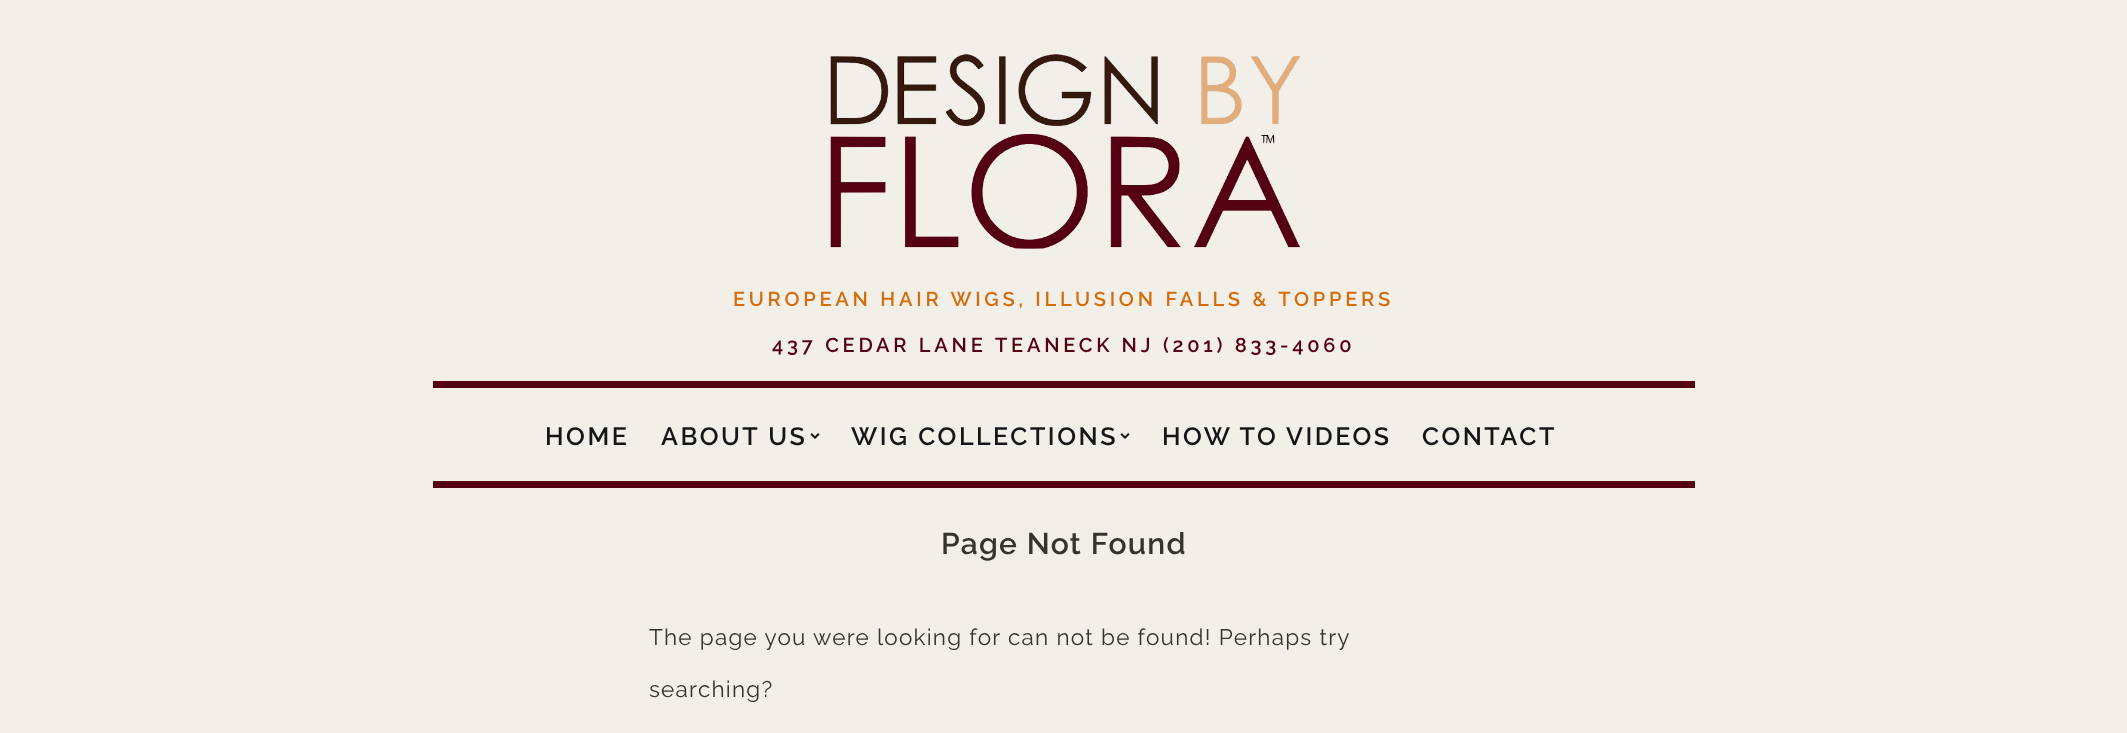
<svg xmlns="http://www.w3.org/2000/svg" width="2127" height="733">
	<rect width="100%" height="100%" fill="#F2EEE8" />
	<image x="830" y="54" width="470" height="195" href="assets/img1.png" />
	<text x="733" y="306" font-family="Raleway" font-size="20" font-weight="600" letter-spacing="3.75" fill="#D46C0B">EUROPEAN HAIR WIGS, ILLUSION FALLS &amp; TOPPERS</text>
	<g font-family="Raleway" font-size="20" font-weight="600" letter-spacing="3.75" fill="#560013">
		<text x="772" y="352">437 CEDAR LANE</text>
		<text x="995" y="352">TEANECK NJ (201) 833-4060</text>
	</g>
	<rect x="433" y="381" width="1262" height="7" fill="#560013" />
	<g font-family="Raleway" font-size="25" font-weight="600" letter-spacing="2.5" fill="#161616">
		<text x="545" y="445">HOME</text>
		<text x="661" y="445">ABOUT US</text>
	</g>
	<image x="810" y="433" width="10" height="6" href="assets/img2.png" />
	<text x="851" y="445" font-family="Raleway" font-size="25" font-weight="600" letter-spacing="2.5" fill="#161616">WIG COLLECTIONS</text>
	<image x="1120" y="433" width="10" height="6" href="assets/img2.png" />
	<g font-family="Raleway" font-size="25" font-weight="600" letter-spacing="2.5" fill="#161616">
		<text x="1162" y="445">HOW TO VIDEOS</text>
		<text x="1422" y="445">CONTACT</text>
	</g>
	<rect x="433" y="481" width="1262" height="7" fill="#560013" />
	<text x="941" y="554" font-family="Raleway" font-size="30" font-weight="600" letter-spacing="1.25" fill="#34342E">Page Not Found</text>
	<g font-family="Raleway" font-size="22.5" letter-spacing="1.25" fill="#34342E">
		<text x="649" y="645">The page you were looking for can not be found! Perhaps try</text>
		<text x="649" y="697">searching?</text>
	</g>
</svg>
